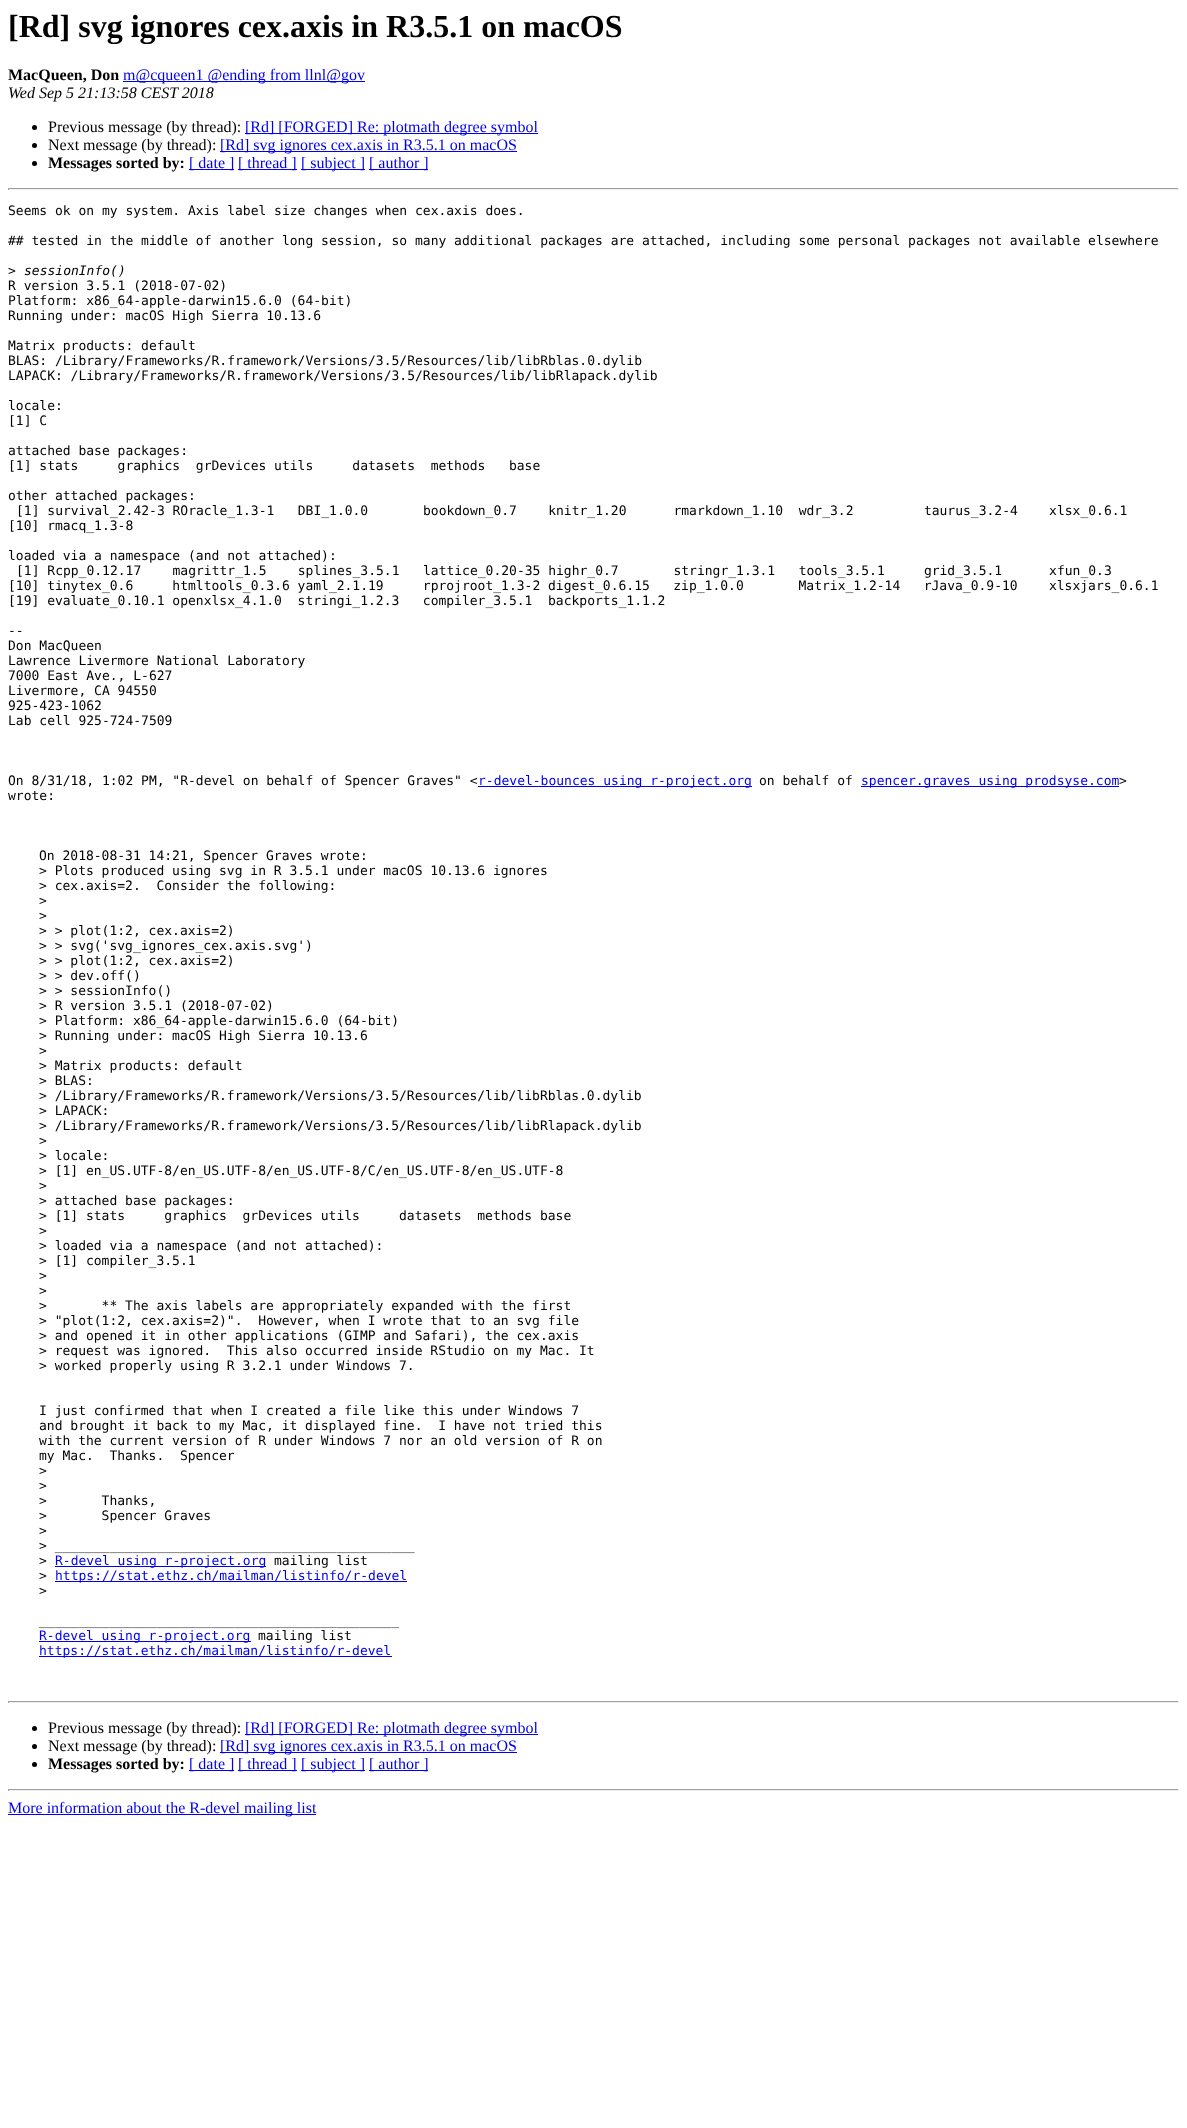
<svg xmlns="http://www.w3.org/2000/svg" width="1187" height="2128">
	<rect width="100%" height="100%" fill="#FFFFFF" />
	<text x="8" y="37" font-family="Liberation Serif" font-size="32" font-weight="700" fill="#000000">[Rd] svg ignores cex.axis in R3.5.1 on macOS</text>
	<text x="8" y="80" font-family="Liberation Serif" font-size="16" font-weight="700" fill="#000000">MacQueen, Don</text>
	<rect x="123" y="81" width="242" height="1" fill="#0000EE" />
	<text x="123" y="80" font-family="Liberation Serif" font-size="16" fill="#0000EE">m@cqueen1 @ending from llnl@gov</text>
	<text x="8" y="98" font-family="Liberation Serif" font-size="16" font-style="italic" fill="#000000">Wed Sep 5 21:13:58 CEST 2018</text>
	<circle cx="34.5" cy="127.5" r="2.5" fill="#000000" />
	<text x="48" y="132" font-family="Liberation Serif" font-size="16" fill="#000000">Previous message (by thread):</text>
	<rect x="245" y="133" width="293" height="1" fill="#0000EE" />
	<text x="245" y="132" font-family="Liberation Serif" font-size="16" fill="#0000EE">[Rd] [FORGED] Re: plotmath degree symbol</text>
	<circle cx="34.5" cy="145.5" r="2.5" fill="#000000" />
	<text x="48" y="150" font-family="Liberation Serif" font-size="16" fill="#000000">Next message (by thread):</text>
	<rect x="220" y="151" width="297" height="1" fill="#0000EE" />
	<text x="220" y="150" font-family="Liberation Serif" font-size="16" fill="#0000EE">[Rd] svg ignores cex.axis in R3.5.1 on macOS</text>
	<circle cx="34.5" cy="163.5" r="2.5" fill="#000000" />
	<text x="48" y="168" font-family="Liberation Serif" font-size="16" font-weight="700" fill="#000000">Messages sorted by:</text>
	<rect x="189" y="169" width="45" height="1" fill="#0000EE" />
	<text x="189" y="168" font-family="Liberation Serif" font-size="16" fill="#0000EE">[ date ]</text>
	<rect x="238" y="169" width="59" height="1" fill="#0000EE" />
	<text x="238" y="168" font-family="Liberation Serif" font-size="16" fill="#0000EE">[ thread ]</text>
	<rect x="301" y="169" width="64" height="1" fill="#0000EE" />
	<text x="301" y="168" font-family="Liberation Serif" font-size="16" fill="#0000EE">[ subject ]</text>
	<rect x="369" y="169" width="59" height="1" fill="#0000EE" />
	<text x="369" y="168" font-family="Liberation Serif" font-size="16" fill="#0000EE">[ author ]</text>
	<rect x="8" y="188" width="1171" height="1" fill="#9F9F9F" />
	<rect x="1178" y="188" width="1" height="2" fill="#EEEEEE" />
	<rect x="8" y="189" width="1171" height="1" fill="#EEEEEE" />
	<rect x="8" y="188" width="1" height="2" fill="#9F9F9F" />
	<g font-family="DejaVu Sans Mono" font-size="13" fill="#000000">
		<text x="8" y="215">Seems ok on my system. Axis label size changes when cex.axis does.</text>
		<text x="8" y="245">## tested in the middle of another long session, so many additional packages are attached, including some personal packages not available elsewhere</text>
		<text x="8" y="275">&gt;</text>
	</g>
	<text x="24" y="275" font-family="DejaVu Sans Mono" font-size="13" font-style="italic" fill="#000000">sessionInfo()</text>
	<g font-family="DejaVu Sans Mono" font-size="13" fill="#000000">
		<text x="8" y="290">R version 3.5.1 (2018-07-02)</text>
		<text x="8" y="305">Platform: x86_64-apple-darwin15.6.0 (64-bit)</text>
		<text x="8" y="320">Running under: macOS High Sierra 10.13.6</text>
		<text x="8" y="350">Matrix products: default</text>
		<text x="8" y="365">BLAS: /Library/Frameworks/R.framework/Versions/3.5/Resources/lib/libRblas.0.dylib</text>
		<text x="8" y="380">LAPACK: /Library/Frameworks/R.framework/Versions/3.5/Resources/lib/libRlapack.dylib</text>
		<text x="8" y="410">locale:</text>
		<text x="8" y="425">[1] C</text>
		<text x="8" y="455">attached base packages:</text>
		<text x="8" y="470" xml:space="preserve">[1] stats     graphics  grDevices utils     datasets  methods   base</text>
		<text x="8" y="500">other attached packages:</text>
		<text x="16" y="515" xml:space="preserve">[1] survival_2.42-3 ROracle_1.3-1   DBI_1.0.0       bookdown_0.7    knitr_1.20      rmarkdown_1.10  wdr_3.2         taurus_3.2-4    xlsx_0.6.1</text>
		<text x="8" y="530">[10] rmacq_1.3-8</text>
		<text x="8" y="560">loaded via a namespace (and not attached):</text>
		<text x="16" y="575" xml:space="preserve">[1] Rcpp_0.12.17    magrittr_1.5    splines_3.5.1   lattice_0.20-35 highr_0.7       stringr_1.3.1   tools_3.5.1     grid_3.5.1      xfun_0.3</text>
		<text x="8" y="590" xml:space="preserve">[10] tinytex_0.6     htmltools_0.3.6 yaml_2.1.19     rprojroot_1.3-2 digest_0.6.15   zip_1.0.0       Matrix_1.2-14   rJava_0.9-10    xlsxjars_0.6.1</text>
		<text x="8" y="605" xml:space="preserve">[19] evaluate_0.10.1 openxlsx_4.1.0  stringi_1.2.3   compiler_3.5.1  backports_1.1.2</text>
		<text x="8" y="635">--</text>
		<text x="8" y="650">Don MacQueen</text>
		<text x="8" y="665">Lawrence Livermore National Laboratory</text>
		<text x="8" y="680">7000 East Ave., L-627</text>
		<text x="8" y="695">Livermore, CA 94550</text>
		<text x="8" y="710">925-423-1062</text>
		<text x="8" y="725">Lab cell 925-724-7509</text>
		<text x="8" y="785">On 8/31/18, 1:02 PM, "R-devel on behalf of Spencer Graves" &lt;</text>
	</g>
	<rect x="478" y="786" width="274" height="1" fill="#0000EE" />
	<text x="478" y="785" font-family="DejaVu Sans Mono" font-size="13" fill="#0000EE">r-devel-bounces using r-project.org</text>
	<text x="759" y="785" font-family="DejaVu Sans Mono" font-size="13" fill="#000000">on behalf of</text>
	<rect x="861" y="786" width="258" height="1" fill="#0000EE" />
	<text x="861" y="785" font-family="DejaVu Sans Mono" font-size="13" fill="#0000EE">spencer.graves using prodsyse.com</text>
	<g font-family="DejaVu Sans Mono" font-size="13" fill="#000000">
		<text x="1119" y="785">&gt;</text>
		<text x="8" y="800">wrote:</text>
		<text x="39" y="860">On 2018-08-31 14:21, Spencer Graves wrote:</text>
		<text x="39" y="875">&gt; Plots produced using svg in R 3.5.1 under macOS 10.13.6 ignores</text>
		<text x="39" y="890" xml:space="preserve">&gt; cex.axis=2.  Consider the following:</text>
		<text x="39" y="905">&gt;</text>
		<text x="39" y="920">&gt;</text>
		<text x="39" y="935">&gt; &gt; plot(1:2, cex.axis=2)</text>
		<text x="39" y="950">&gt; &gt; svg('svg_ignores_cex.axis.svg')</text>
		<text x="39" y="965">&gt; &gt; plot(1:2, cex.axis=2)</text>
		<text x="39" y="980">&gt; &gt; dev.off()</text>
		<text x="39" y="995">&gt; &gt; sessionInfo()</text>
		<text x="39" y="1010">&gt; R version 3.5.1 (2018-07-02)</text>
		<text x="39" y="1025">&gt; Platform: x86_64-apple-darwin15.6.0 (64-bit)</text>
		<text x="39" y="1040">&gt; Running under: macOS High Sierra 10.13.6</text>
		<text x="39" y="1055">&gt;</text>
		<text x="39" y="1070">&gt; Matrix products: default</text>
		<text x="39" y="1085">&gt; BLAS:</text>
		<text x="39" y="1100">&gt; /Library/Frameworks/R.framework/Versions/3.5/Resources/lib/libRblas.0.dylib</text>
		<text x="39" y="1115">&gt; LAPACK:</text>
		<text x="39" y="1130">&gt; /Library/Frameworks/R.framework/Versions/3.5/Resources/lib/libRlapack.dylib</text>
		<text x="39" y="1145">&gt;</text>
		<text x="39" y="1160">&gt; locale:</text>
		<text x="39" y="1175">&gt; [1] en_US.UTF-8/en_US.UTF-8/en_US.UTF-8/C/en_US.UTF-8/en_US.UTF-8</text>
		<text x="39" y="1190">&gt;</text>
		<text x="39" y="1205">&gt; attached base packages:</text>
		<text x="39" y="1220" xml:space="preserve">&gt; [1] stats     graphics  grDevices utils     datasets  methods base</text>
		<text x="39" y="1235">&gt;</text>
		<text x="39" y="1250">&gt; loaded via a namespace (and not attached):</text>
		<text x="39" y="1265">&gt; [1] compiler_3.5.1</text>
		<text x="39" y="1280">&gt;</text>
		<text x="39" y="1295">&gt;</text>
		<text x="39" y="1310" xml:space="preserve">&gt;       ** The axis labels are appropriately expanded with the first</text>
		<text x="39" y="1325" xml:space="preserve">&gt; "plot(1:2, cex.axis=2)".  However, when I wrote that to an svg file</text>
		<text x="39" y="1340">&gt; and opened it in other applications (GIMP and Safari), the cex.axis</text>
		<text x="39" y="1355" xml:space="preserve">&gt; request was ignored.  This also occurred inside RStudio on my Mac. It</text>
		<text x="39" y="1370">&gt; worked properly using R 3.2.1 under Windows 7.</text>
		<text x="39" y="1415">I just confirmed that when I created a file like this under Windows 7</text>
		<text x="39" y="1430" xml:space="preserve">and brought it back to my Mac, it displayed fine.  I have not tried this</text>
		<text x="39" y="1445">with the current version of R under Windows 7 nor an old version of R on</text>
		<text x="39" y="1460" xml:space="preserve">my Mac.  Thanks.  Spencer</text>
		<text x="39" y="1475">&gt;</text>
		<text x="39" y="1490">&gt;</text>
		<text x="39" y="1505" xml:space="preserve">&gt;       Thanks,</text>
		<text x="39" y="1520" xml:space="preserve">&gt;       Spencer Graves</text>
		<text x="39" y="1535">&gt;</text>
		<text x="39" y="1550">&gt; ______________________________________________</text>
		<text x="39" y="1565">&gt;</text>
	</g>
	<rect x="55" y="1566" width="211" height="1" fill="#0000EE" />
	<text x="55" y="1565" font-family="DejaVu Sans Mono" font-size="13" fill="#0000EE">R-devel using r-project.org</text>
	<g font-family="DejaVu Sans Mono" font-size="13" fill="#000000">
		<text x="274" y="1565">mailing list</text>
		<text x="39" y="1580">&gt;</text>
	</g>
	<rect x="55" y="1581" width="352" height="1" fill="#0000EE" />
	<text x="55" y="1580" font-family="DejaVu Sans Mono" font-size="13" fill="#0000EE">https://stat.ethz.ch/mailman/listinfo/r-devel</text>
	<g font-family="DejaVu Sans Mono" font-size="13" fill="#000000">
		<text x="39" y="1595">&gt;</text>
		<text x="39" y="1625">______________________________________________</text>
	</g>
	<rect x="39" y="1641" width="212" height="1" fill="#0000EE" />
	<text x="39" y="1640" font-family="DejaVu Sans Mono" font-size="13" fill="#0000EE">R-devel using r-project.org</text>
	<text x="258" y="1640" font-family="DejaVu Sans Mono" font-size="13" fill="#000000">mailing list</text>
	<rect x="39" y="1656" width="353" height="1" fill="#0000EE" />
	<text x="39" y="1655" font-family="DejaVu Sans Mono" font-size="13" fill="#0000EE">https://stat.ethz.ch/mailman/listinfo/r-devel</text>
	<rect x="8" y="1701" width="1171" height="1" fill="#9F9F9F" />
	<rect x="1178" y="1701" width="1" height="2" fill="#EEEEEE" />
	<rect x="8" y="1702" width="1171" height="1" fill="#EEEEEE" />
	<rect x="8" y="1701" width="1" height="2" fill="#9F9F9F" />
	<circle cx="34.5" cy="1728.5" r="2.5" fill="#000000" />
	<text x="48" y="1733" font-family="Liberation Serif" font-size="16" fill="#000000">Previous message (by thread):</text>
	<rect x="245" y="1734" width="293" height="1" fill="#0000EE" />
	<text x="245" y="1733" font-family="Liberation Serif" font-size="16" fill="#0000EE">[Rd] [FORGED] Re: plotmath degree symbol</text>
	<circle cx="34.5" cy="1746.5" r="2.5" fill="#000000" />
	<text x="48" y="1751" font-family="Liberation Serif" font-size="16" fill="#000000">Next message (by thread):</text>
	<rect x="220" y="1752" width="297" height="1" fill="#0000EE" />
	<text x="220" y="1751" font-family="Liberation Serif" font-size="16" fill="#0000EE">[Rd] svg ignores cex.axis in R3.5.1 on macOS</text>
	<circle cx="34.5" cy="1764.5" r="2.5" fill="#000000" />
	<text x="48" y="1769" font-family="Liberation Serif" font-size="16" font-weight="700" fill="#000000">Messages sorted by:</text>
	<rect x="189" y="1770" width="45" height="1" fill="#0000EE" />
	<text x="189" y="1769" font-family="Liberation Serif" font-size="16" fill="#0000EE">[ date ]</text>
	<rect x="238" y="1770" width="59" height="1" fill="#0000EE" />
	<text x="238" y="1769" font-family="Liberation Serif" font-size="16" fill="#0000EE">[ thread ]</text>
	<rect x="301" y="1770" width="64" height="1" fill="#0000EE" />
	<text x="301" y="1769" font-family="Liberation Serif" font-size="16" fill="#0000EE">[ subject ]</text>
	<rect x="369" y="1770" width="59" height="1" fill="#0000EE" />
	<text x="369" y="1769" font-family="Liberation Serif" font-size="16" fill="#0000EE">[ author ]</text>
	<rect x="8" y="1789" width="1171" height="1" fill="#9F9F9F" />
	<rect x="1178" y="1789" width="1" height="2" fill="#EEEEEE" />
	<rect x="8" y="1790" width="1171" height="1" fill="#EEEEEE" />
	<rect x="8" y="1789" width="1" height="2" fill="#9F9F9F" />
	<rect x="8" y="1814" width="308" height="1" fill="#0000EE" />
	<text x="8" y="1813" font-family="Liberation Serif" font-size="16" fill="#0000EE">More information about the R-devel mailing list</text>
</svg>
